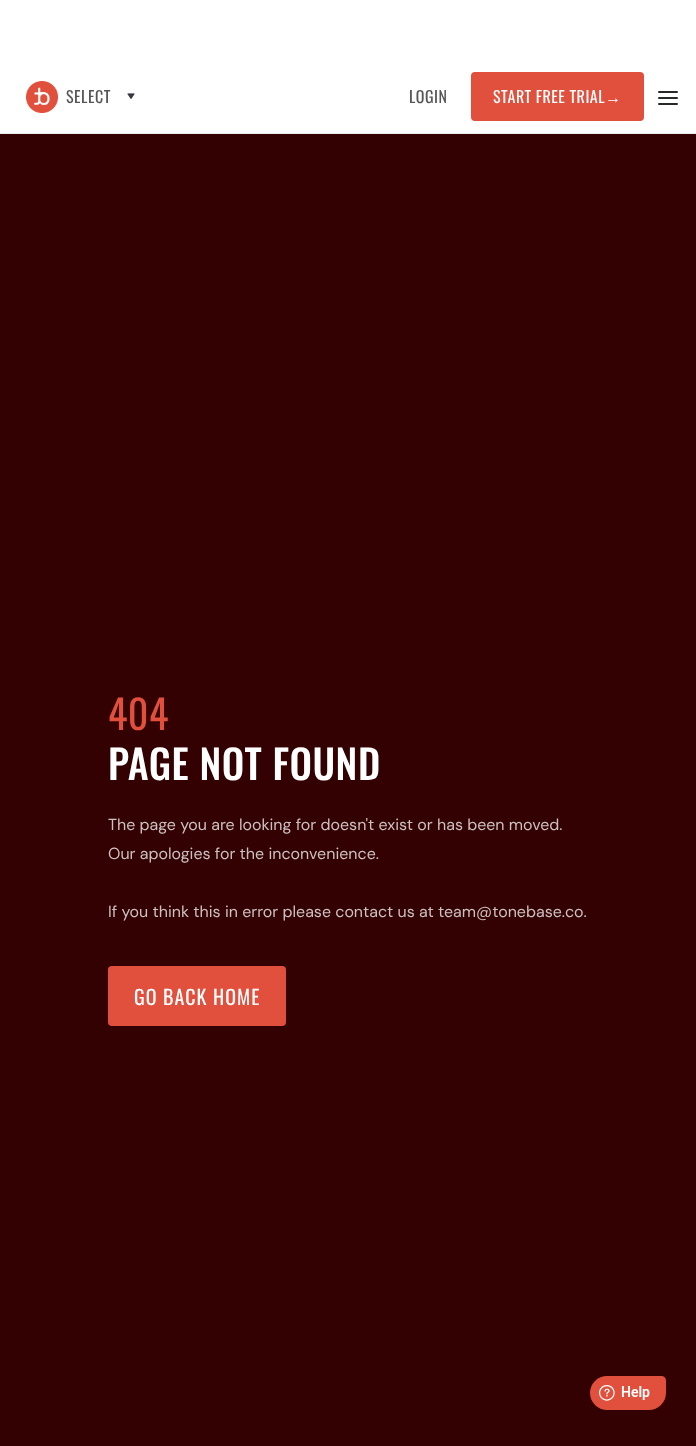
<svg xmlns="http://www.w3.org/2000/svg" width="696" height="1446">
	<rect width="100%" height="100%" fill="#FFFFFF" />
	<rect x="0" y="133" width="696" height="1" fill="#EEEEEE" />
	<image x="26" y="81" width="32" height="32" href="assets/img1.png" />
	<text x="66" y="103" font-family="Oswald" font-size="16" letter-spacing="0.5" fill="#555555">SELECT</text>
	<image x="127" y="93" width="8" height="6" href="assets/img2.png" />
	<text x="409" y="103" font-family="Oswald" font-size="16" letter-spacing="0.5" fill="#555555">LOGIN</text>
	<rect x="472" y="73" width="171" height="47" rx="3" fill="#E14F3D" stroke="#E14F3D" stroke-width="2" />
	<text x="493" y="103" font-family="Oswald" font-size="16" letter-spacing="0.5" fill="#FFFFFF">START FREE TRIAL</text>
	<text x="605" y="103" font-family="Liberation Sans" font-size="16" font-weight="700" letter-spacing="0.5" fill="#FFFFFF">→</text>
	<path d="M659 98H677M659 92H677M659 104H677" fill="none" stroke="#272929" stroke-width="2" stroke-linecap="round" stroke-linejoin="round" />
	<rect x="0" y="134" width="696" height="1312" fill="#330101" />
	<text x="108" y="730" font-family="Oswald" font-size="40" letter-spacing="0.5" fill="#E14F3D">404</text>
	<text x="108" y="780" font-family="Oswald" font-size="40" font-weight="500" letter-spacing="0.5" fill="#FFFFFF">PAGE NOT FOUND</text>
	<g font-family="DM Sans" font-size="16" fill="#CCC0C0">
		<text x="108" y="830">The page you are looking for doesn't exist or has been moved.</text>
		<text x="108" y="859">Our apologies for the inconvenience.</text>
		<text x="108" y="917">If you think this in error please contact us at team@tonebase.co.</text>
	</g>
	<rect x="109" y="967" width="176" height="58" rx="3" fill="#E14F3D" stroke="#E14F3D" stroke-width="2" />
	<text x="134" y="1005" font-family="Oswald" font-size="20" letter-spacing="1" fill="#FFFFFF">GO BACK HOME</text>
	<image x="590" y="1376" width="77" height="34" href="assets/img3.png" />
</svg>
